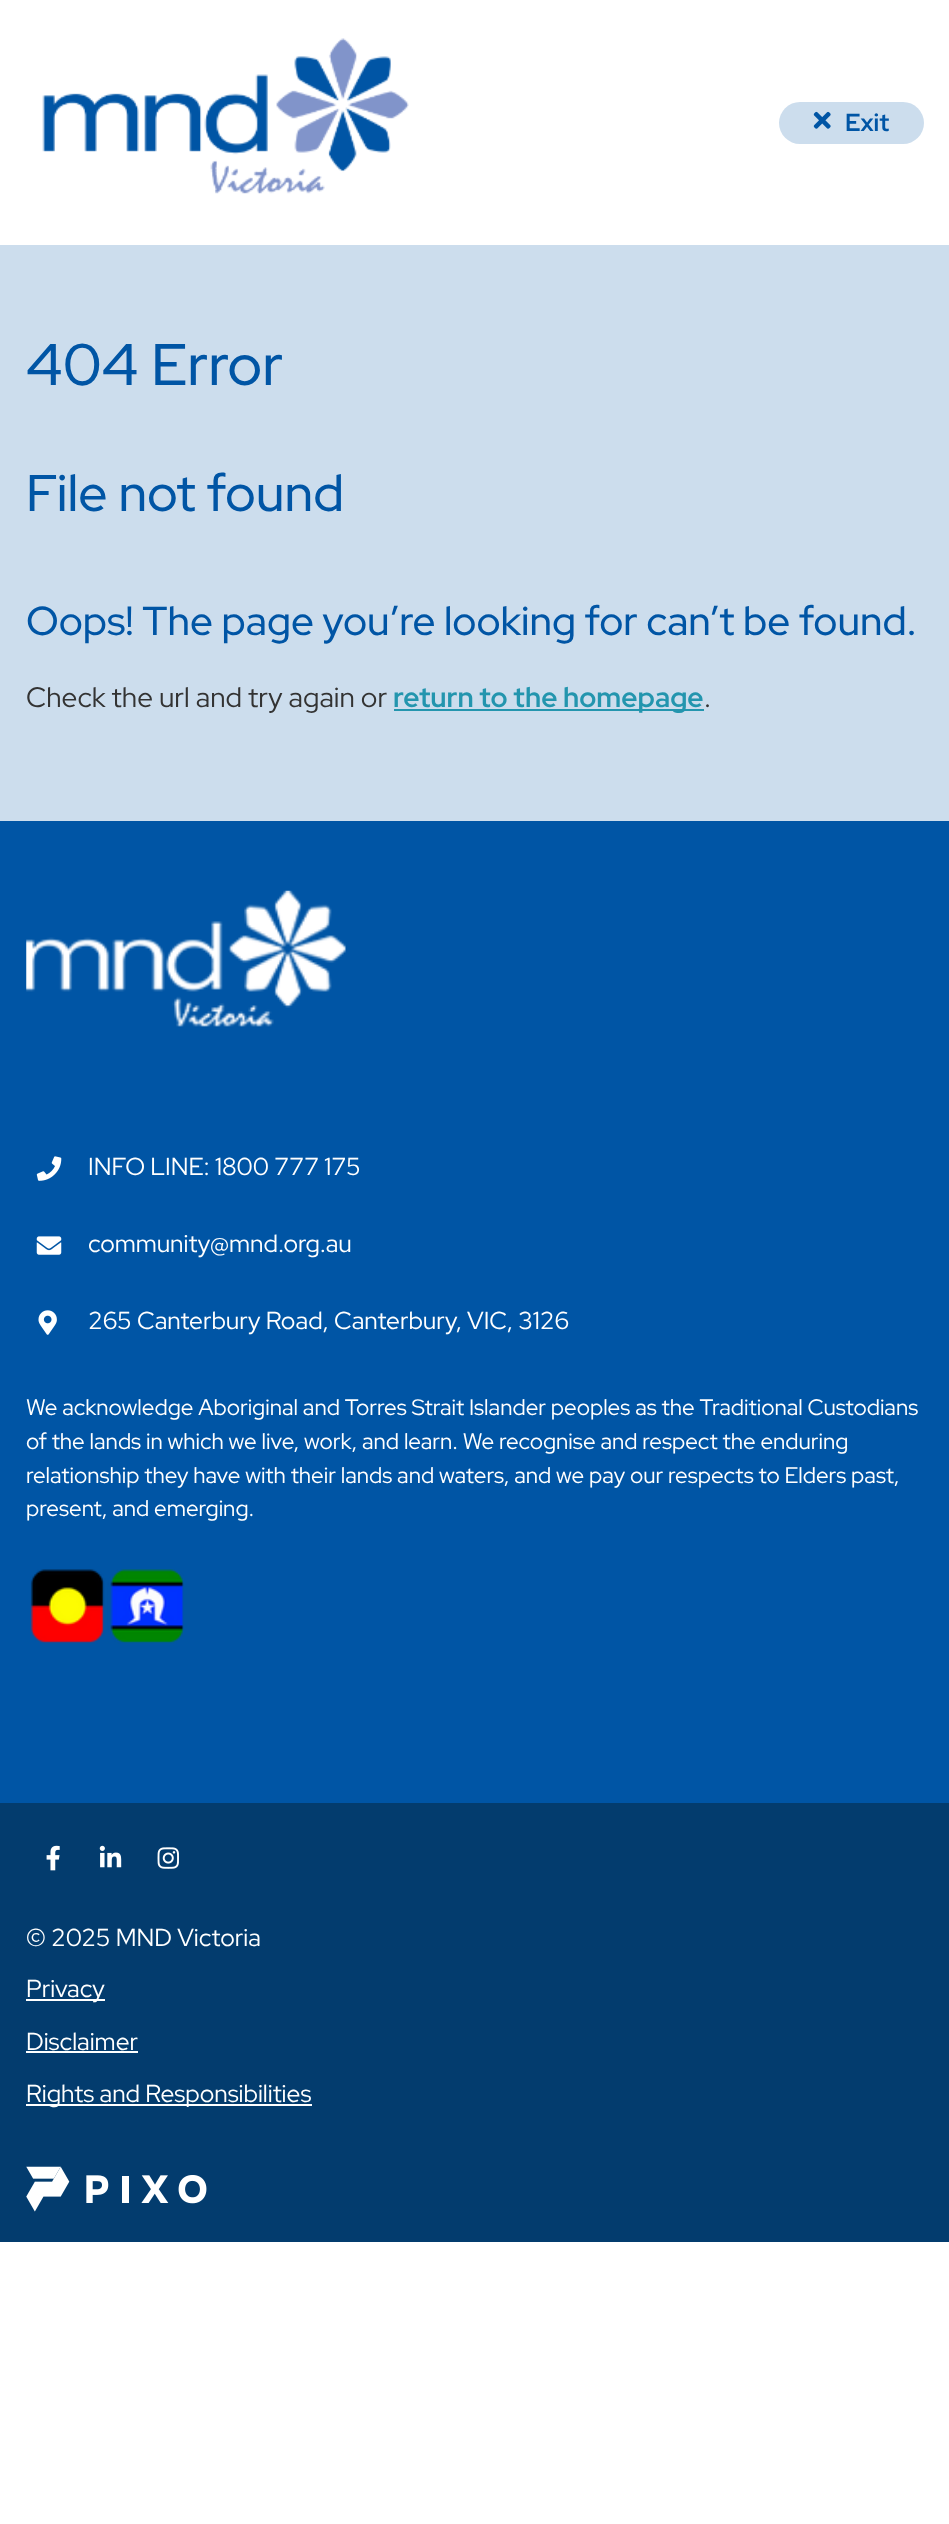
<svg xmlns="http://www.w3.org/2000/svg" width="949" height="2524">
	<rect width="100%" height="100%" fill="#FFFFFF" />
	<image x="42" y="38" width="367" height="156" href="assets/img1.png" />
	<rect x="779" y="102" width="145" height="42" rx="21" fill="#CCDDED" />
	<image x="813" y="111" width="18" height="18" href="assets/img2.png" />
	<text x="845" y="131" font-family="Red Hat Display" font-size="24.5" font-weight="700" fill="#0055A5">Exit</text>
	<rect x="0" y="245" width="949" height="576" fill="#CCDDED" />
	<text x="26" y="385" font-family="Red Hat Display" font-size="58.5" font-weight="500" fill="#0055A5">404 Error</text>
	<text x="26" y="511" font-family="Red Hat Display" font-size="51.5" font-weight="500" fill="#0055A5">File not found</text>
	<text x="26" y="635" font-family="Red Hat Display" font-size="40.4" font-weight="500" fill="#0055A5">Oops! The page you’re looking for can’t be found.</text>
	<text x="26" y="707" font-family="Red Hat Display" font-size="28" fill="#333333">Check the url and try again or</text>
	<rect x="394" y="709" width="310" height="2" fill="#2395AE" />
	<text x="393" y="707" font-family="Red Hat Display" font-size="28" font-weight="700" fill="#2395AE">return to the homepage</text>
	<text x="704" y="707" font-family="Red Hat Display" font-size="28" fill="#333333">.</text>
	<rect x="0" y="821" width="949" height="982" fill="#0055A5" />
	<image x="26" y="890" width="320" height="137" href="assets/img3.png" />
	<image x="36" y="1156" width="26" height="25" href="assets/img4.png" />
	<text x="88" y="1175" font-family="Red Hat Display" font-size="24.5" fill="#FFFFFF">INFO LINE: 1800 777 175</text>
	<image x="36" y="1236" width="26" height="19" href="assets/img5.png" />
	<text x="88" y="1252" font-family="Red Hat Display" font-size="24.5" fill="#FFFFFF">community@mnd.org.au</text>
	<image x="38" y="1310" width="19" height="25" href="assets/img6.png" />
	<text x="88" y="1329" font-family="Red Hat Display" font-size="24.5" fill="#FFFFFF">265 Canterbury Road, Canterbury, VIC, 3126</text>
	<g font-family="Red Hat Display" font-size="22.4" fill="#FFFFFF">
		<text x="26" y="1415">We acknowledge Aboriginal and Torres Strait Islander peoples as the Traditional Custodians</text>
		<text x="26" y="1449">of the lands in which we live, work, and learn. We recognise and respect the enduring</text>
		<text x="26" y="1483">relationship they have with their lands and waters, and we pay our respects to Elders past,</text>
		<text x="26" y="1516">present, and emerging.</text>
	</g>
	<image x="30" y="1569" width="154" height="75" href="assets/img7.png" />
	<rect x="0" y="1803" width="949" height="439" fill="#033C6E" />
	<image x="46" y="1845" width="14" height="26" href="assets/img8.png" />
	<image x="99" y="1845" width="23" height="23" href="assets/img9.png" />
	<image x="157" y="1847" width="22" height="22" href="assets/img10.png" />
	<text x="26" y="1946" font-family="Red Hat Display" font-size="24.5" fill="#FFFFFF">© 2025 MND Victoria</text>
	<rect x="26" y="1999" width="79" height="2" fill="#FFFFFF" />
	<g font-family="Red Hat Display" font-size="24.5" fill="#FFFFFF">
		<text x="26" y="1997">Privacy</text>
		<text x="26" y="2050">Disclaimer</text>
	</g>
	<rect x="26" y="2051" width="112" height="2" fill="#FFFFFF" />
	<rect x="26" y="2104" width="286" height="2" fill="#FFFFFF" />
	<text x="26" y="2102" font-family="Red Hat Display" font-size="24.5" fill="#FFFFFF">Rights and Responsibilities</text>
	<image x="26" y="2166" width="181" height="46" href="assets/img11.png" />
</svg>
